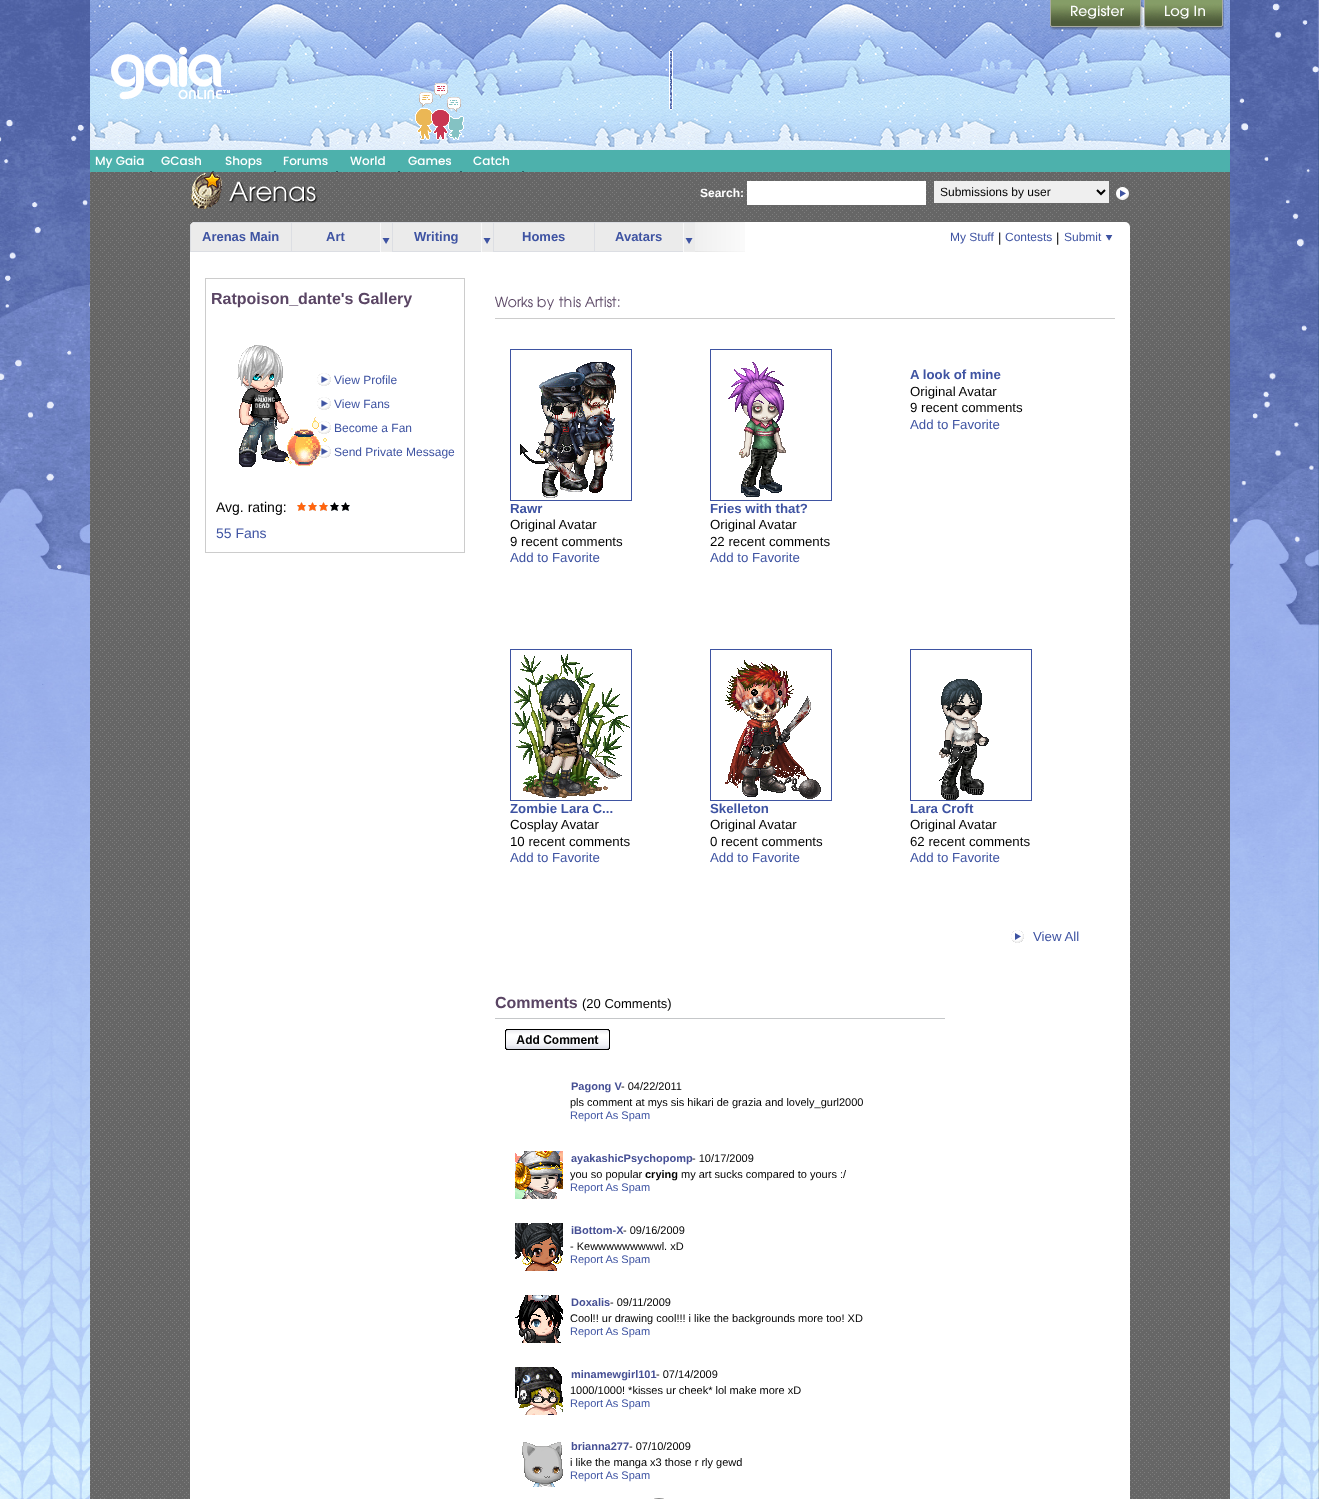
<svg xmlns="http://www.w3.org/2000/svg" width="1319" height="1499">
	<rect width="100%" height="100%" fill="#FFFFFF" />
	<image x="1318" y="90" width="1" height="1409" href="assets/img1.png" />
	<image x="0" y="0" width="1319" height="1499" href="assets/img2.png" />
	<image x="90" y="0" width="1140" height="150" href="assets/img3.png" />
	<image x="90" y="0" width="1140" height="150" href="assets/img4.png" />
	<image x="1050" y="0" width="93" height="30" href="assets/img5.png" />
	<image x="1144" y="0" width="80" height="30" href="assets/img6.png" />
	<image x="111" y="46" width="119" height="54" href="assets/img7.png" />
	<image x="415" y="83" width="49" height="57" href="assets/img8.png" />
	<image x="669" y="50" width="4" height="60" href="assets/img9.png" />
	<rect x="90" y="150" width="1140" height="22" fill="#4DB1AC" />
	<g font-family="Poppins" font-size="12" font-weight="500" fill="#FFFFFF">
		<text x="95" y="165">My Gaia</text>
		<text x="161" y="165">GCash</text>
		<text x="225" y="165">Shops</text>
		<text x="283" y="165">Forums</text>
		<text x="350" y="165">World</text>
		<text x="408" y="165">Games</text>
		<text x="473" y="165">Catch</text>
	</g>
	<rect x="150" y="171" width="2" height="1" fill="#265F62" />
	<rect x="212" y="171" width="2" height="1" fill="#265F62" />
	<rect x="274" y="171" width="2" height="1" fill="#265F62" />
	<rect x="336" y="171" width="2" height="1" fill="#265F62" />
	<rect x="398" y="171" width="2" height="1" fill="#265F62" />
	<rect x="460" y="171" width="2" height="1" fill="#265F62" />
	<rect x="522" y="171" width="2" height="1" fill="#265F62" />
	<image x="90" y="172" width="1140" height="1327" href="assets/img10.png" />
	<image x="191" y="172" width="127" height="37" href="assets/img11.png" />
	<text x="700" y="197" font-family="Liberation Sans" font-size="12" font-weight="700" fill="#FFFFFF">Search:</text>
	<rect x="747" y="181" width="179" height="24" fill="#FFFFFF" />
	<rect x="934" y="181" width="175" height="22" fill="#EFEFEF" />
	<path d="M1097 190L1101 194L1105 190" fill="none" stroke="#000000" stroke-width="2" />
	<text x="940" y="196" font-family="Liberation Sans" font-size="12" fill="#000000">Submissions by user</text>
	<image x="1116" y="187" width="13" height="14" href="assets/img12.png" />
	<rect x="190" y="222" width="940" height="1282" rx="5" fill="#FFFFFF" />
	<path d="M195 222H292V252H190V227C190 224 192 222 195 222Z" fill="#EBEBEB" />
	<path d="M195 222L192 223H291V251H191V224C190 225 190 226 190 227V252H292V222Z" fill="#DCDEE3" />
	<text x="202" y="241" font-family="Liberation Sans" font-size="13" font-weight="700" fill="#3E53A2">Arenas Main</text>
	<rect x="292" y="223" width="88" height="28" fill="#EBEBEB" />
	<rect x="291.5" y="222.5" width="101" height="29" fill="none" stroke="#DCDEE3" />
	<text x="326" y="241" font-family="Liberation Sans" font-size="13" font-weight="700" fill="#3E53A2">Art</text>
	<image x="380" y="223" width="12" height="29" href="assets/img13.png" />
	<rect x="393" y="223" width="88" height="28" fill="#EBEBEB" />
	<rect x="392.5" y="222.5" width="101" height="29" fill="none" stroke="#DCDEE3" />
	<text x="414" y="241" font-family="Liberation Sans" font-size="13" font-weight="700" fill="#3E53A2">Writing</text>
	<image x="481" y="223" width="12" height="29" href="assets/img13.png" />
	<rect x="493.5" y="222.5" width="101" height="29" fill="#EBEBEB" stroke="#DCDEE3" />
	<text x="522" y="241" font-family="Liberation Sans" font-size="13" font-weight="700" fill="#3E53A2">Homes</text>
	<rect x="595" y="223" width="88" height="28" fill="#EBEBEB" />
	<rect x="594" y="222" width="101" height="1" fill="#DCDEE3" />
	<rect x="594" y="251" width="89" height="1" fill="#DCDEE3" />
	<text x="615" y="241" font-family="Liberation Sans" font-size="13" font-weight="700" fill="#3E53A2">Avatars</text>
	<image x="683" y="223" width="12" height="29" href="assets/img13.png" />
	<image x="695" y="222" width="50" height="30" href="assets/img14.png" />
	<text x="950" y="241" font-family="Liberation Sans" font-size="12" fill="#3E53A2">My Stuff</text>
	<text x="998" y="242" font-family="Liberation Sans" font-size="13" fill="#000000">|</text>
	<text x="1005" y="241" font-family="Liberation Sans" font-size="12" fill="#3E53A2">Contests</text>
	<text x="1056" y="242" font-family="Liberation Sans" font-size="13" fill="#000000">|</text>
	<text x="1064" y="241" font-family="Liberation Sans" font-size="12" fill="#3E53A2">Submit</text>
	<image x="1105" y="235" width="8" height="6" href="assets/img15.png" />
	<rect x="205.5" y="278.5" width="259" height="274" fill="none" stroke="#CCCCCC" />
	<text x="211" y="304" font-family="Liberation Sans" font-size="16" font-weight="700" fill="#5A4564">Ratpoison_dante's Gallery</text>
	<image x="317" y="373" width="14" height="13" href="assets/img17.png" />
	<image x="317" y="397" width="14" height="13" href="assets/img17.png" />
	<image x="317" y="421" width="14" height="13" href="assets/img17.png" />
	<image x="319" y="445" width="12" height="13" href="assets/img18.png" />
	<image x="237" y="345" width="90" height="122" href="assets/img16.png" />
	<g font-family="Liberation Sans" font-size="12" fill="#3E53A2">
		<text x="334" y="384">View Profile</text>
		<text x="334" y="408">View Fans</text>
		<text x="334" y="432">Become a Fan</text>
		<text x="334" y="456">Send Private Message</text>
	</g>
	<text x="216" y="512" font-family="Liberation Sans" font-size="14" fill="#000000">Avg. rating:</text>
	<image x="297" y="502" width="9" height="9" href="assets/img19.png" />
	<image x="308" y="502" width="9" height="9" href="assets/img19.png" />
	<image x="319" y="502" width="9" height="9" href="assets/img19.png" />
	<image x="330" y="502" width="9" height="9" href="assets/img20.png" />
	<image x="341" y="502" width="9" height="9" href="assets/img20.png" />
	<text x="216" y="538" font-family="Liberation Sans" font-size="14" fill="#3E53A2">55 Fans</text>
	<rect x="495" y="318" width="620" height="1" fill="#CCCCCC" />
	<image x="495" y="296" width="125" height="14" href="assets/img21.png" />
	<text x="910" y="379" font-family="Liberation Sans" font-size="13.25" font-weight="700" fill="#3E53A2">A look of mine</text>
	<g font-family="Liberation Sans" font-size="13.25" fill="#000000">
		<text x="910" y="396">Original Avatar</text>
		<text x="910" y="412">9 recent comments</text>
	</g>
	<text x="910" y="429" font-family="Liberation Sans" font-size="13.25" fill="#3E53A2">Add to Favorite</text>
	<rect x="510.5" y="349.5" width="121" height="151" fill="none" stroke="#3E53A2" />
	<image x="520" y="362" width="96" height="136" href="assets/img22.png" />
	<text x="510" y="513" font-family="Liberation Sans" font-size="13.25" font-weight="700" fill="#3E53A2">Rawr</text>
	<g font-family="Liberation Sans" font-size="13.25" fill="#000000">
		<text x="510" y="529">Original Avatar</text>
		<text x="510" y="546">9 recent comments</text>
	</g>
	<text x="510" y="562" font-family="Liberation Sans" font-size="13.25" fill="#3E53A2">Add to Favorite</text>
	<rect x="710.5" y="349.5" width="121" height="151" fill="none" stroke="#3E53A2" />
	<image x="728" y="362" width="58" height="135" href="assets/img23.png" />
	<text x="710" y="513" font-family="Liberation Sans" font-size="13.25" font-weight="700" fill="#3E53A2">Fries with that?</text>
	<g font-family="Liberation Sans" font-size="13.25" fill="#000000">
		<text x="710" y="529">Original Avatar</text>
		<text x="710" y="546">22 recent comments</text>
	</g>
	<text x="710" y="562" font-family="Liberation Sans" font-size="13.25" fill="#3E53A2">Add to Favorite</text>
	<rect x="510.5" y="649.5" width="121" height="151" fill="none" stroke="#3E53A2" />
	<image x="512" y="654" width="118" height="144" href="assets/img24.png" />
	<text x="510" y="813" font-family="Liberation Sans" font-size="13.25" font-weight="700" fill="#3E53A2">Zombie Lara C...</text>
	<g font-family="Liberation Sans" font-size="13.25" fill="#000000">
		<text x="510" y="829">Cosplay Avatar</text>
		<text x="510" y="846">10 recent comments</text>
	</g>
	<text x="510" y="862" font-family="Liberation Sans" font-size="13.25" fill="#3E53A2">Add to Favorite</text>
	<rect x="710.5" y="649.5" width="121" height="151" fill="none" stroke="#3E53A2" />
	<image x="725" y="660" width="96" height="139" href="assets/img25.png" />
	<text x="710" y="813" font-family="Liberation Sans" font-size="13.25" font-weight="700" fill="#3E53A2">Skelleton</text>
	<g font-family="Liberation Sans" font-size="13.25" fill="#000000">
		<text x="710" y="829">Original Avatar</text>
		<text x="710" y="846">0 recent comments</text>
	</g>
	<text x="710" y="862" font-family="Liberation Sans" font-size="13.25" fill="#3E53A2">Add to Favorite</text>
	<rect x="910.5" y="649.5" width="121" height="151" fill="none" stroke="#3E53A2" />
	<image x="939" y="679" width="50" height="121" href="assets/img26.png" />
	<text x="910" y="813" font-family="Liberation Sans" font-size="13.25" font-weight="700" fill="#3E53A2">Lara Croft</text>
	<g font-family="Liberation Sans" font-size="13.25" fill="#000000">
		<text x="910" y="829">Original Avatar</text>
		<text x="910" y="846">62 recent comments</text>
	</g>
	<text x="910" y="862" font-family="Liberation Sans" font-size="13.25" fill="#3E53A2">Add to Favorite</text>
	<image x="1011" y="930" width="13" height="13" href="assets/img27.png" />
	<text x="1033" y="941" font-family="Liberation Sans" font-size="13.25" fill="#3E53A2">View All</text>
	<text x="495" y="1008" font-family="Liberation Sans" font-size="16" font-weight="700" fill="#5A4564">Comments</text>
	<text x="582" y="1008" font-family="Liberation Sans" font-size="13" fill="#000000">(20 Comments)</text>
	<rect x="495" y="1018" width="450" height="1" fill="#C5C7C9" />
	<image x="505" y="1029" width="105" height="21" href="assets/img28.png" />
	<text x="571" y="1090" font-family="Liberation Sans" font-size="11" font-weight="700" fill="#454F94">Pagong V</text>
	<g font-family="Liberation Sans" font-size="11" fill="#000000">
		<text x="621" y="1090">- 04/22/2011</text>
		<text x="570" y="1106">pls comment at mys sis hikari de grazia and lovely_gurl2000</text>
	</g>
	<text x="570" y="1119" font-family="Liberation Sans" font-size="11" fill="#3E53A2">Report As Spam</text>
	<image x="515" y="1151" width="48" height="48" href="assets/img29.png" />
	<text x="571" y="1162" font-family="Liberation Sans" font-size="11" font-weight="700" fill="#454F94">ayakashicPsychopomp</text>
	<g font-family="Liberation Sans" font-size="11" fill="#000000">
		<text x="692" y="1162">- 10/17/2009</text>
		<text x="570" y="1178">you so popular</text>
	</g>
	<text x="645" y="1178" font-family="Liberation Sans" font-size="11" font-weight="700" fill="#000000">crying</text>
	<text x="681" y="1178" font-family="Liberation Sans" font-size="11" fill="#000000">my art sucks compared to yours :/</text>
	<text x="570" y="1191" font-family="Liberation Sans" font-size="11" fill="#3E53A2">Report As Spam</text>
	<image x="515" y="1223" width="48" height="48" href="assets/img30.png" />
	<text x="571" y="1234" font-family="Liberation Sans" font-size="11" font-weight="700" fill="#454F94">iBottom-X</text>
	<g font-family="Liberation Sans" font-size="11" fill="#000000">
		<text x="623" y="1234">- 09/16/2009</text>
		<text x="570" y="1250">- Kewwwwwwwwwl. xD</text>
	</g>
	<text x="570" y="1263" font-family="Liberation Sans" font-size="11" fill="#3E53A2">Report As Spam</text>
	<image x="515" y="1295" width="48" height="48" href="assets/img31.png" />
	<text x="571" y="1306" font-family="Liberation Sans" font-size="11" font-weight="700" fill="#454F94">Doxalis</text>
	<g font-family="Liberation Sans" font-size="11" fill="#000000">
		<text x="610" y="1306">- 09/11/2009</text>
		<text x="570" y="1322">Cool!! ur drawing cool!!! i like the backgrounds more too! XD</text>
	</g>
	<text x="570" y="1335" font-family="Liberation Sans" font-size="11" fill="#3E53A2">Report As Spam</text>
	<image x="515" y="1367" width="48" height="48" href="assets/img32.png" />
	<text x="571" y="1378" font-family="Liberation Sans" font-size="11" font-weight="700" fill="#454F94">minamewgirl101</text>
	<g font-family="Liberation Sans" font-size="11" fill="#000000">
		<text x="656" y="1378">- 07/14/2009</text>
		<text x="570" y="1394">1000/1000! *kisses ur cheek* lol make more xD</text>
	</g>
	<text x="570" y="1407" font-family="Liberation Sans" font-size="11" fill="#3E53A2">Report As Spam</text>
	<image x="522" y="1442" width="41" height="45" href="assets/img33.png" />
	<text x="571" y="1450" font-family="Liberation Sans" font-size="11" font-weight="700" fill="#454F94">brianna277</text>
	<g font-family="Liberation Sans" font-size="11" fill="#000000">
		<text x="629" y="1450">- 07/10/2009</text>
		<text x="570" y="1466">i like the manga x3 those r rly gewd</text>
	</g>
	<text x="570" y="1479" font-family="Liberation Sans" font-size="11" fill="#3E53A2">Report As Spam</text>
	<rect x="648.5" y="1498.5" width="21" height="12" rx="10.5" fill="none" stroke="#F9F9F9" />
	<rect x="648.5" y="1498.5" width="21" height="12" rx="10.5" fill="none" stroke="#888888" />
</svg>
